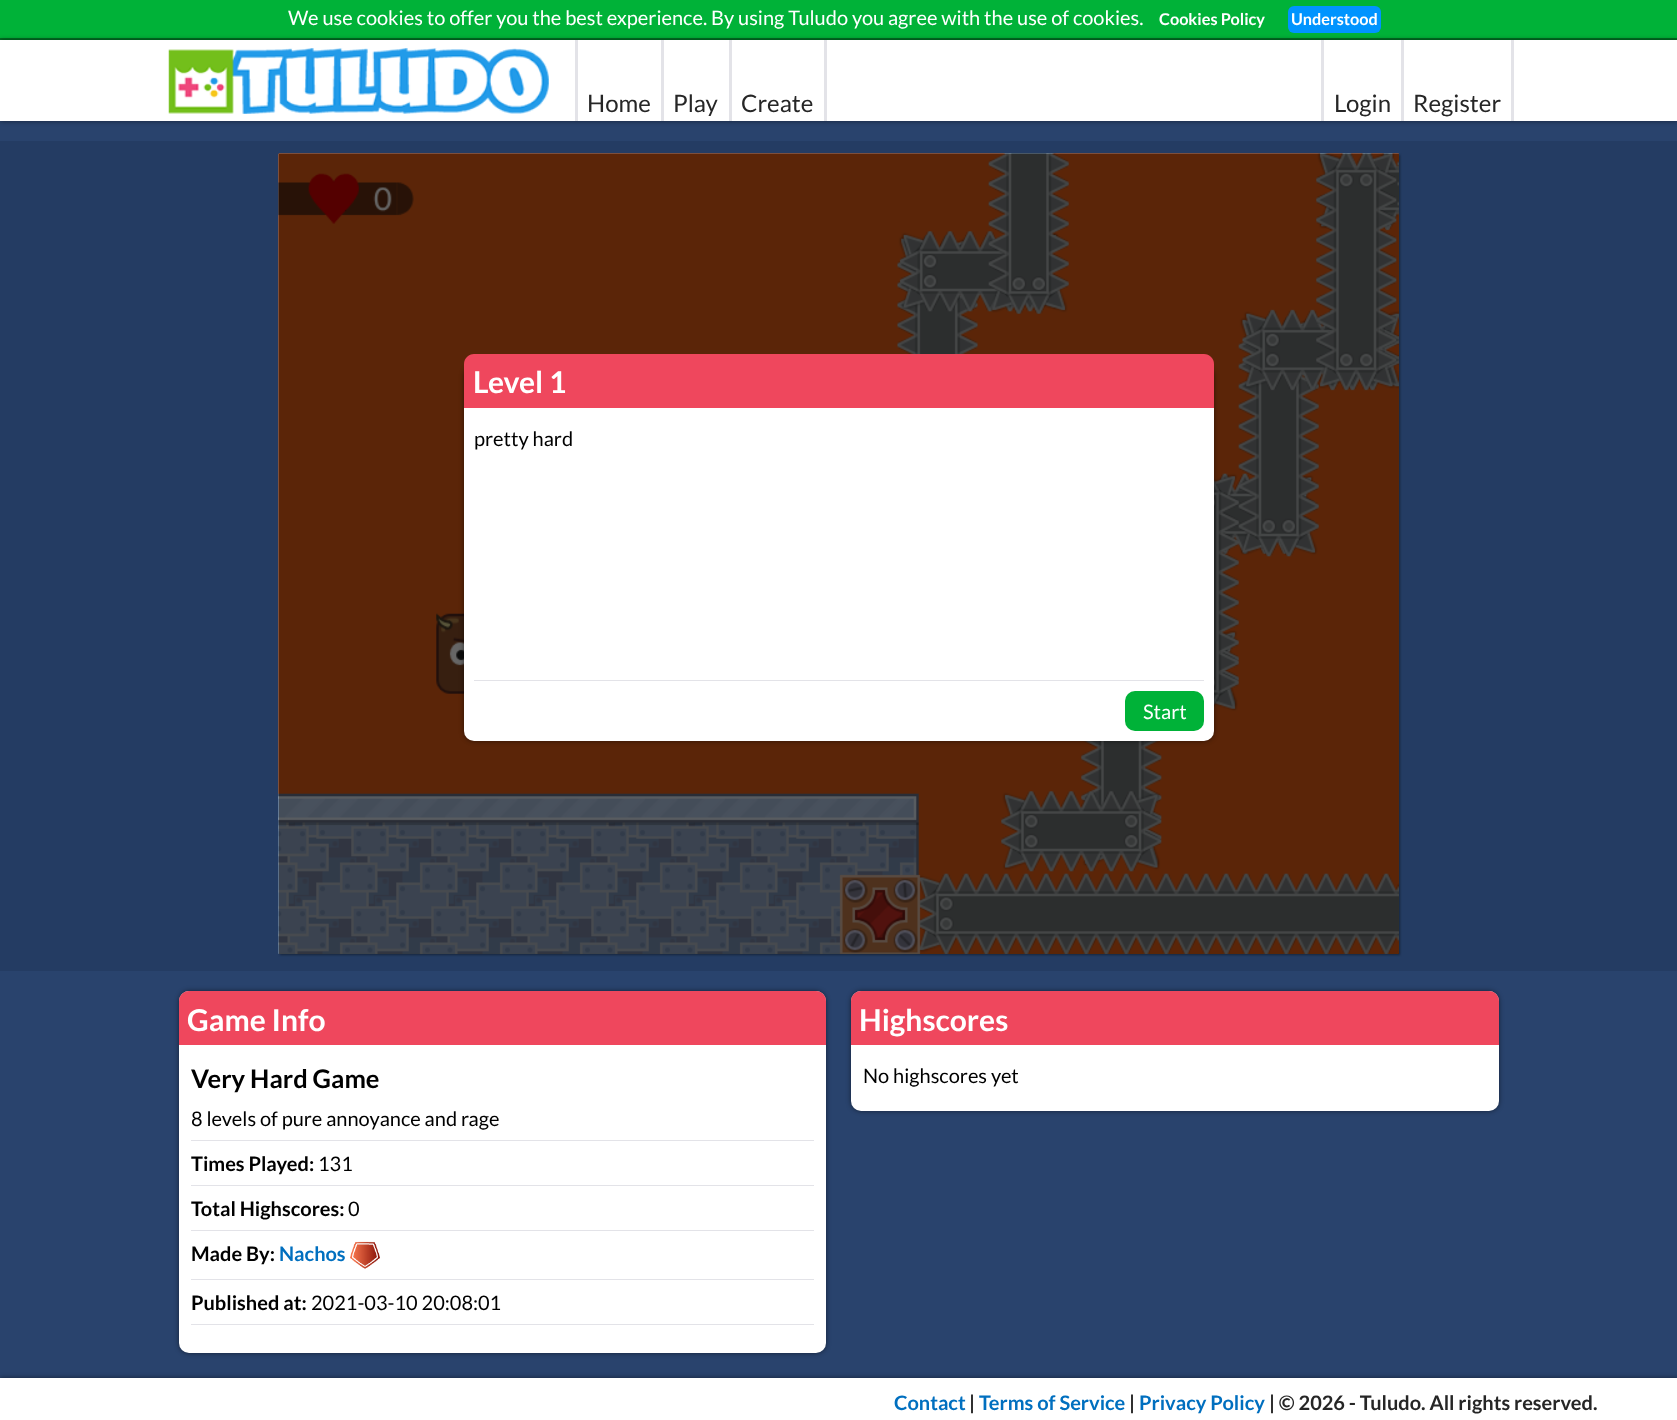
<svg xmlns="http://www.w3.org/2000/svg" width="1677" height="1420">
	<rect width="100%" height="100%" fill="#29436D" />
	<rect x="0" y="0" width="1677" height="38" fill="#00B238" />
	<rect x="0" y="38" width="1677" height="2" fill="#007224" />
	<text x="288" y="25" font-family="Lato" font-size="20" fill="#FFFFFF">We use cookies to offer you the best experience. By using Tuludo you agree with the use of cookies.</text>
	<text x="1159" y="25" font-family="Lato" font-size="16.25" font-weight="700" fill="#FFFFFF">Cookies Policy</text>
	<rect x="1288" y="6" width="93" height="27" rx="6" fill="#0094FF" />
	<text x="1291" y="25" font-family="Lato" font-size="16.25" font-weight="700" fill="#FFFFFF">Understood</text>
	<rect x="0" y="40" width="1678" height="81" fill="#000000" fill-opacity="0.5" filter="blur(2.5px)" />
	<rect x="0" y="40" width="1677" height="81" fill="#FFFFFF" />
	<image x="168" y="48" width="381" height="66" href="assets/img1.png" />
	<rect x="575" y="40" width="3" height="81" fill="#E3E3E8" />
	<rect x="661" y="40" width="3" height="81" fill="#E3E3E8" />
	<text x="587" y="112" font-family="Lato" font-size="24" fill="#262626">Home</text>
	<rect x="729" y="40" width="3" height="81" fill="#E3E3E8" />
	<text x="673" y="112" font-family="Lato" font-size="24" fill="#262626">Play</text>
	<rect x="824" y="40" width="3" height="81" fill="#E3E3E8" />
	<text x="741" y="112" font-family="Lato" font-size="24" fill="#262626">Create</text>
	<rect x="1321" y="40" width="3" height="81" fill="#E3E3E8" />
	<rect x="1401" y="40" width="3" height="81" fill="#E3E3E8" />
	<text x="1334" y="112" font-family="Lato" font-size="24" fill="#262626">Login</text>
	<rect x="1511" y="40" width="3" height="81" fill="#E3E3E8" />
	<text x="1413" y="112" font-family="Lato" font-size="24" fill="#262626">Register</text>
	<rect x="0" y="141" width="1677" height="830" fill="#243C63" />
	<rect x="280" y="155" width="1120" height="800" fill="#000000" fill-opacity="0.4" filter="blur(1px)" />
	<image x="278" y="153" width="1121" height="801" href="assets/img2.png" />
	<image x="278" y="153" width="1121" height="801" href="assets/img3.png" />
	<rect x="279" y="154" width="1120" height="800" fill="#000000" fill-opacity="0.6" />
	<rect x="464" y="366" width="750" height="375" rx="10" fill="#000000" fill-opacity="0.5" filter="blur(2.5px)" />
	<rect x="464" y="366" width="750" height="375" rx="10" fill="#FFFFFF" />
	<path d="M474 354H1204C1209.5 354 1214 358.5 1214 364V408H464V364C464 358.5 468.5 354 474 354Z" fill="#EF475D" />
	<text x="473" y="393" font-family="Lato" font-size="30" font-weight="700" fill="#FFFFFF">Level 1</text>
	<text x="474" y="446" font-family="Lato" font-size="20" fill="#000000">pretty hard</text>
	<rect x="474" y="680" width="730" height="1" fill="#E3E3E8" />
	<rect x="1125" y="691" width="79" height="40" rx="10" fill="#00B238" />
	<text x="1143" y="719" font-family="Lato" font-size="20" fill="#FFFFFF">Start</text>
	<rect x="179" y="991" width="647" height="362" rx="10" fill="#000000" fill-opacity="0.5" filter="blur(2.5px)" />
	<rect x="179" y="991" width="647" height="362" rx="10" fill="#FFFFFF" />
	<path d="M189 991H816C821.5 991 826 995.5 826 1001V1045H179V1001C179 995.5 183.5 991 189 991Z" fill="#EF475D" />
	<text x="187" y="1031" font-family="Lato" font-size="30" font-weight="700" fill="#FFFFFF">Game Info</text>
	<text x="191" y="1088" font-family="Lato" font-size="25.5" font-weight="700" fill="#000000">Very Hard Game</text>
	<text x="191" y="1126" font-family="Lato" font-size="20" fill="#000000">8 levels of pure annoyance and rage</text>
	<rect x="191" y="1140" width="623" height="1" fill="#E3E3E8" />
	<text x="191" y="1171" font-family="Lato" font-size="20" font-weight="700" fill="#000000">Times Played:</text>
	<text x="318" y="1171" font-family="Lato" font-size="20" fill="#000000">131</text>
	<rect x="191" y="1185" width="623" height="1" fill="#E3E3E8" />
	<text x="191" y="1216" font-family="Lato" font-size="20" font-weight="700" fill="#000000">Total Highscores:</text>
	<text x="348" y="1216" font-family="Lato" font-size="20" fill="#000000">0</text>
	<rect x="191" y="1230" width="623" height="1" fill="#E3E3E8" />
	<text x="191" y="1261" font-family="Lato" font-size="20" font-weight="700" fill="#000000">Made By:</text>
	<text x="279" y="1261" font-family="Lato" font-size="20" font-weight="700" fill="#006FBF">Nachos</text>
	<image x="350" y="1241" width="30" height="28" href="assets/img4.png" />
	<rect x="191" y="1279" width="623" height="1" fill="#E3E3E8" />
	<text x="191" y="1310" font-family="Lato" font-size="20" font-weight="700" fill="#000000">Published at:</text>
	<text x="311" y="1310" font-family="Lato" font-size="20" fill="#000000">2021-03-10 20:08:01</text>
	<rect x="191" y="1324" width="623" height="1" fill="#E3E3E8" />
	<rect x="851" y="991" width="648" height="120" rx="10" fill="#000000" fill-opacity="0.5" filter="blur(2.5px)" />
	<rect x="851" y="991" width="648" height="120" rx="10" fill="#FFFFFF" />
	<path d="M861 991H1489C1494.5 991 1499 995.5 1499 1001V1045H851V1001C851 995.5 855.5 991 861 991Z" fill="#EF475D" />
	<text x="859" y="1031" font-family="Lato" font-size="30" font-weight="700" fill="#FFFFFF">Highscores</text>
	<text x="863" y="1083" font-family="Lato" font-size="20" fill="#000000">No highscores yet</text>
	<rect x="0" y="1378" width="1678" height="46" fill="#000000" fill-opacity="0.5" filter="blur(2.5px)" />
	<rect x="0" y="1378" width="1677" height="42" fill="#FFFFFF" />
	<text x="894" y="1410" font-family="Lato" font-size="20" font-weight="700" fill="#006FBF">Contact</text>
	<text x="969" y="1410" font-family="Lato" font-size="20" font-weight="700" fill="#262626">|</text>
	<text x="979" y="1410" font-family="Lato" font-size="20" font-weight="700" fill="#006FBF">Terms of Service</text>
	<text x="1129" y="1410" font-family="Lato" font-size="20" font-weight="700" fill="#262626">|</text>
	<text x="1139" y="1410" font-family="Lato" font-size="20" font-weight="700" fill="#006FBF">Privacy Policy</text>
	<text x="1269" y="1410" font-family="Lato" font-size="20" font-weight="700" fill="#262626">| © 2026 - Tuludo. All rights reserved.</text>
</svg>
